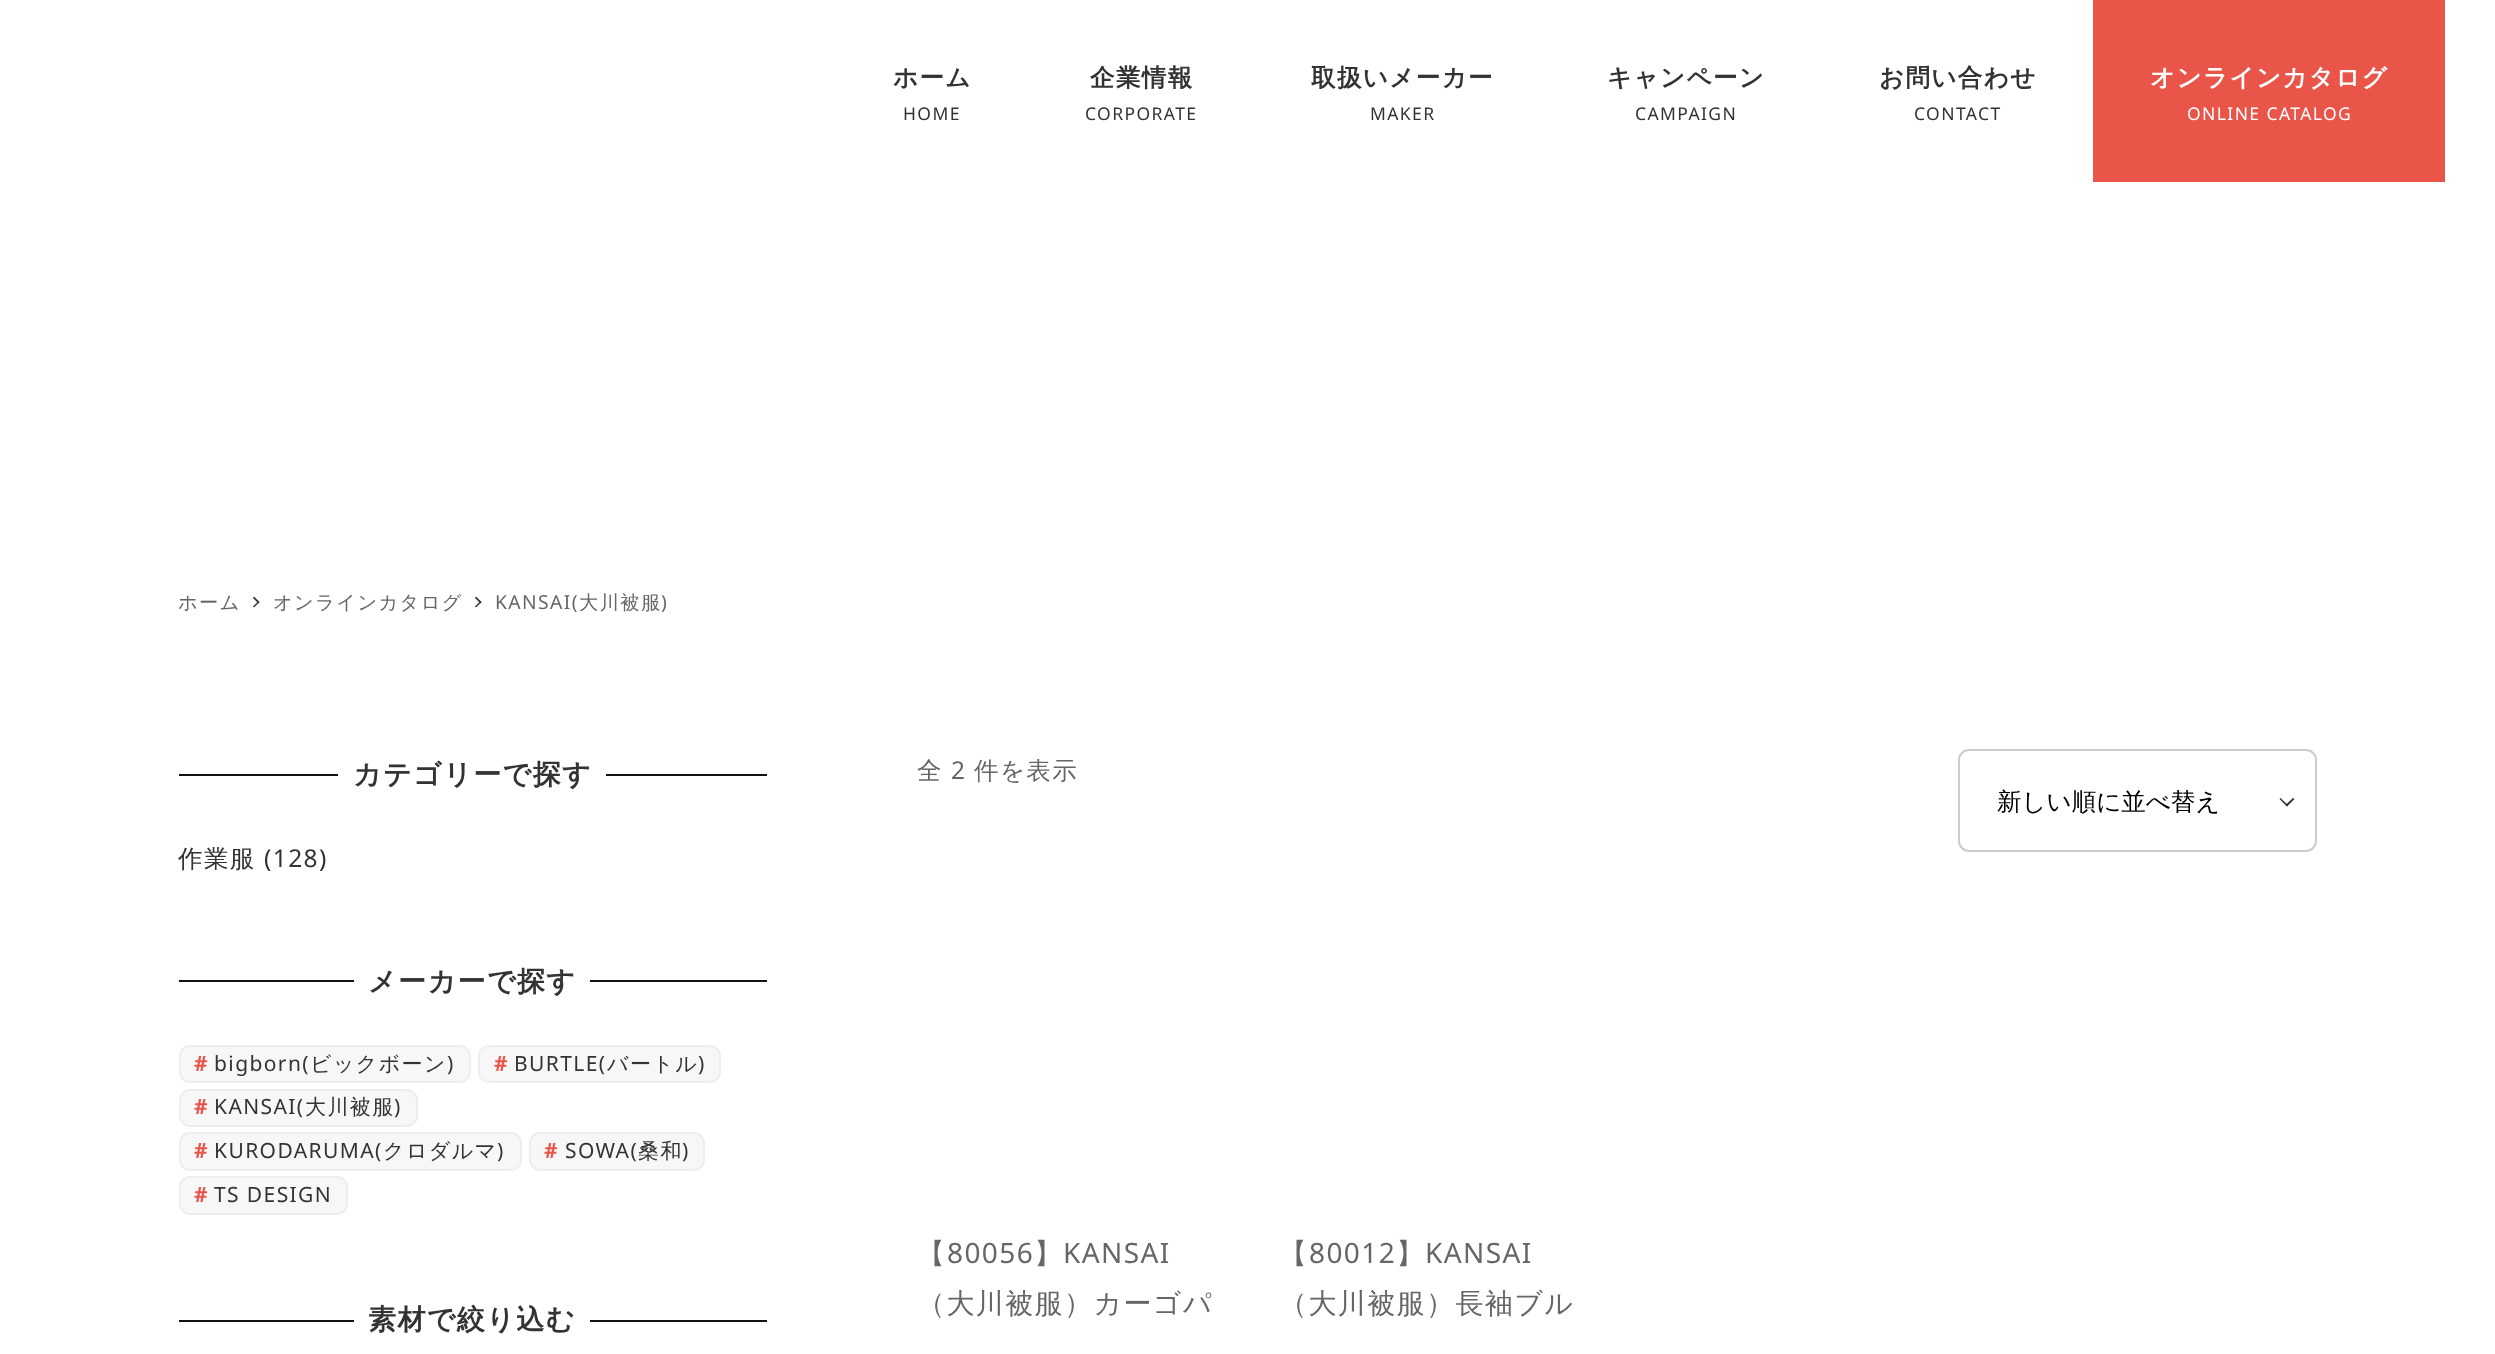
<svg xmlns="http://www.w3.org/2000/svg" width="2495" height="1354">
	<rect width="100%" height="100%" fill="#FFFFFF" />
	<text x="893" y="86" font-family="WenQuanYi Zen Hei" font-size="24.5" font-weight="700" letter-spacing="1.4" fill="#333333">ホーム</text>
	<text x="903" y="120" font-family="Noto Sans" font-size="17.5" letter-spacing="1.4" fill="#333333">HOME</text>
	<text x="1090" y="86" font-family="WenQuanYi Zen Hei" font-size="24.5" font-weight="700" letter-spacing="1.4" fill="#333333">企業情報</text>
	<text x="1085" y="120" font-family="Noto Sans" font-size="17.5" letter-spacing="1.4" fill="#333333">CORPORATE</text>
	<text x="1311" y="86" font-family="WenQuanYi Zen Hei" font-size="24.5" font-weight="700" letter-spacing="1.4" fill="#333333">取扱いメーカー</text>
	<text x="1370" y="120" font-family="Noto Sans" font-size="17.5" letter-spacing="1.4" fill="#333333">MAKER</text>
	<text x="1607" y="86" font-family="WenQuanYi Zen Hei" font-size="24.5" font-weight="700" letter-spacing="1.4" fill="#333333">キャンペーン</text>
	<text x="1635" y="120" font-family="Noto Sans" font-size="17.5" letter-spacing="1.4" fill="#333333">CAMPAIGN</text>
	<text x="1879" y="86" font-family="WenQuanYi Zen Hei" font-size="24.5" font-weight="700" letter-spacing="1.4" fill="#333333">お問い合わせ</text>
	<text x="1914" y="120" font-family="Noto Sans" font-size="17.5" letter-spacing="1.4" fill="#333333">CONTACT</text>
	<rect x="2093" y="0" width="352" height="182" fill="#EA5549" />
	<text x="2150" y="86" font-family="WenQuanYi Zen Hei" font-size="24.5" font-weight="700" letter-spacing="1.4" fill="#FFFFFF">オンラインカタログ</text>
	<text x="2187" y="120" font-family="Noto Sans" font-size="17.5" letter-spacing="1.4" fill="#FFFFFF">ONLINE CATALOG</text>
	<text x="178" y="609" font-family="WenQuanYi Zen Hei" font-size="19.25" font-weight="500" letter-spacing="1.4" fill="#666666">ホーム</text>
	<path d="M254 596.5L259.5 602L258.5 603.5L253 598Z" fill="#333333" />
	<path d="M258.5 601L259.5 602L254 607.5L253 606.5Z" fill="#333333" />
	<text x="273" y="609" font-family="WenQuanYi Zen Hei" font-size="19.25" font-weight="500" letter-spacing="1.4" fill="#666666">オンラインカタログ</text>
	<path d="M476 596.5L481.5 602L480.5 603.5L475 598Z" fill="#333333" />
	<path d="M480.5 601L481.5 602L476 607.5L475 606.5Z" fill="#333333" />
	<text x="495" y="609" font-family="Noto Sans" font-size="19.25" letter-spacing="1.4" fill="#666666">KANSAI(</text>
	<text x="579" y="609" font-family="WenQuanYi Zen Hei" font-size="19.25" font-weight="500" letter-spacing="1.4" fill="#666666">大川被服</text>
	<text x="661" y="609" font-family="Noto Sans" font-size="19.25" letter-spacing="1.4" fill="#666666">)</text>
	<rect x="179" y="774" width="159" height="2" fill="#111111" />
	<text x="353" y="784" font-family="WenQuanYi Zen Hei" font-size="28" font-weight="700" letter-spacing="1.4" fill="#333333">カテゴリーで探す</text>
	<rect x="606" y="774" width="161" height="2" fill="#111111" />
	<text x="178" y="867" font-family="WenQuanYi Zen Hei" font-size="24.5" font-weight="500" letter-spacing="1.4" fill="#333333">作業服</text>
	<text x="264" y="867" font-family="Noto Sans" font-size="24.5" letter-spacing="1.4" fill="#333333">(128)</text>
	<rect x="179" y="980" width="175" height="2" fill="#111111" />
	<text x="368" y="991" font-family="WenQuanYi Zen Hei" font-size="28" font-weight="700" letter-spacing="1.4" fill="#333333">メーカーで探す</text>
	<rect x="590" y="980" width="177" height="2" fill="#111111" />
	<rect x="180" y="1046" width="290" height="36" rx="10" fill="#F7F7F7" stroke="#EEEEEE" stroke-width="2" />
	<text x="194" y="1071" font-family="Noto Sans" font-size="21" font-weight="700" letter-spacing="1.4" fill="#EA5549">#</text>
	<text x="214" y="1071" font-family="Noto Sans" font-size="21" letter-spacing="1.4" fill="#333333">bigborn(</text>
	<text x="310" y="1071" font-family="WenQuanYi Zen Hei" font-size="21" font-weight="500" letter-spacing="1.4" fill="#333333">ビックボーン</text>
	<text x="447" y="1071" font-family="Noto Sans" font-size="21" letter-spacing="1.4" fill="#333333">)</text>
	<rect x="479" y="1046" width="241" height="36" rx="10" fill="#F7F7F7" stroke="#EEEEEE" stroke-width="2" />
	<text x="494" y="1071" font-family="Noto Sans" font-size="21" font-weight="700" letter-spacing="1.4" fill="#EA5549">#</text>
	<text x="514" y="1071" font-family="Noto Sans" font-size="21" letter-spacing="1.4" fill="#333333">BURTLE(</text>
	<text x="607" y="1071" font-family="WenQuanYi Zen Hei" font-size="21" font-weight="500" letter-spacing="1.4" fill="#333333">バートル</text>
	<text x="698" y="1071" font-family="Noto Sans" font-size="21" letter-spacing="1.4" fill="#333333">)</text>
	<rect x="180" y="1090" width="237" height="36" rx="10" fill="#F7F7F7" stroke="#EEEEEE" stroke-width="2" />
	<text x="194" y="1114" font-family="Noto Sans" font-size="21" font-weight="700" letter-spacing="1.4" fill="#EA5549">#</text>
	<text x="214" y="1114" font-family="Noto Sans" font-size="21" letter-spacing="1.4" fill="#333333">KANSAI(</text>
	<text x="305" y="1114" font-family="WenQuanYi Zen Hei" font-size="21" font-weight="500" letter-spacing="1.4" fill="#333333">大川被服</text>
	<text x="394" y="1114" font-family="Noto Sans" font-size="21" letter-spacing="1.4" fill="#333333">)</text>
	<rect x="180" y="1133" width="341" height="37" rx="10" fill="#F7F7F7" stroke="#EEEEEE" stroke-width="2" />
	<text x="194" y="1158" font-family="Noto Sans" font-size="21" font-weight="700" letter-spacing="1.4" fill="#EA5549">#</text>
	<text x="214" y="1158" font-family="Noto Sans" font-size="21" letter-spacing="1.4" fill="#333333">KURODARUMA(</text>
	<text x="383" y="1158" font-family="WenQuanYi Zen Hei" font-size="21" font-weight="500" letter-spacing="1.4" fill="#333333">クロダルマ</text>
	<text x="497" y="1158" font-family="Noto Sans" font-size="21" letter-spacing="1.4" fill="#333333">)</text>
	<rect x="530" y="1133" width="174" height="37" rx="10" fill="#F7F7F7" stroke="#EEEEEE" stroke-width="2" />
	<text x="544" y="1158" font-family="Noto Sans" font-size="21" font-weight="700" letter-spacing="1.4" fill="#EA5549">#</text>
	<text x="565" y="1158" font-family="Noto Sans" font-size="21" letter-spacing="1.4" fill="#333333">SOWA(</text>
	<text x="638" y="1158" font-family="WenQuanYi Zen Hei" font-size="21" font-weight="500" letter-spacing="1.4" fill="#333333">桑和</text>
	<text x="682" y="1158" font-family="Noto Sans" font-size="21" letter-spacing="1.4" fill="#333333">)</text>
	<rect x="180" y="1177" width="167" height="37" rx="10" fill="#F7F7F7" stroke="#EEEEEE" stroke-width="2" />
	<text x="194" y="1202" font-family="Noto Sans" font-size="21" font-weight="700" letter-spacing="1.4" fill="#EA5549">#</text>
	<text x="214" y="1202" font-family="Noto Sans" font-size="21" letter-spacing="1.4" fill="#333333">TS DESIGN</text>
	<rect x="179" y="1320" width="175" height="2" fill="#111111" />
	<text x="368" y="1329" font-family="WenQuanYi Zen Hei" font-size="28" font-weight="700" letter-spacing="1.4" fill="#333333">素材で絞り込む</text>
	<rect x="590" y="1320" width="177" height="2" fill="#111111" />
	<text x="917" y="779" font-family="WenQuanYi Zen Hei" font-size="24.5" font-weight="500" letter-spacing="1.4" fill="#666666">全</text>
	<text x="951" y="779" font-family="Noto Sans" font-size="24.5" letter-spacing="1.4" fill="#666666">2</text>
	<text x="974" y="779" font-family="WenQuanYi Zen Hei" font-size="24.5" font-weight="500" letter-spacing="1.4" fill="#666666">件を表示</text>
	<path d="M2293 798L2294.5 799L2287 806.5L2285.5 805Z" fill="#333333" />
	<path d="M2280.5 798L2288 805L2287 806.5L2279.5 799Z" fill="#333333" />
	<rect x="1959" y="750" width="357" height="101" rx="10" fill="none" stroke="#CCCCCC" stroke-width="2" />
	<text x="1997" y="810" font-family="WenQuanYi Zen Hei" font-size="24.5" font-weight="500" fill="#000000">新しい順に並べ替え</text>
	<text x="917" y="1263" font-family="WenQuanYi Zen Hei" font-size="28" font-weight="500" letter-spacing="1.4" fill="#666666">【</text>
	<text x="947" y="1263" font-family="Noto Sans" font-size="28" letter-spacing="1.4" fill="#666666">80056</text>
	<text x="1034" y="1263" font-family="WenQuanYi Zen Hei" font-size="28" font-weight="500" letter-spacing="1.4" fill="#666666">】</text>
	<text x="1063" y="1263" font-family="Noto Sans" font-size="28" letter-spacing="1.4" fill="#666666">KANSAI</text>
	<g font-family="WenQuanYi Zen Hei" font-size="28" font-weight="500" letter-spacing="1.4" fill="#666666">
		<text x="917" y="1313">（大川被服）カーゴパ</text>
		<text x="1279" y="1263">【</text>
	</g>
	<text x="1309" y="1263" font-family="Noto Sans" font-size="28" letter-spacing="1.4" fill="#666666">80012</text>
	<text x="1396" y="1263" font-family="WenQuanYi Zen Hei" font-size="28" font-weight="500" letter-spacing="1.4" fill="#666666">】</text>
	<text x="1425" y="1263" font-family="Noto Sans" font-size="28" letter-spacing="1.4" fill="#666666">KANSAI</text>
	<text x="1279" y="1313" font-family="WenQuanYi Zen Hei" font-size="28" font-weight="500" letter-spacing="1.4" fill="#666666">（大川被服）長袖ブル</text>
</svg>
